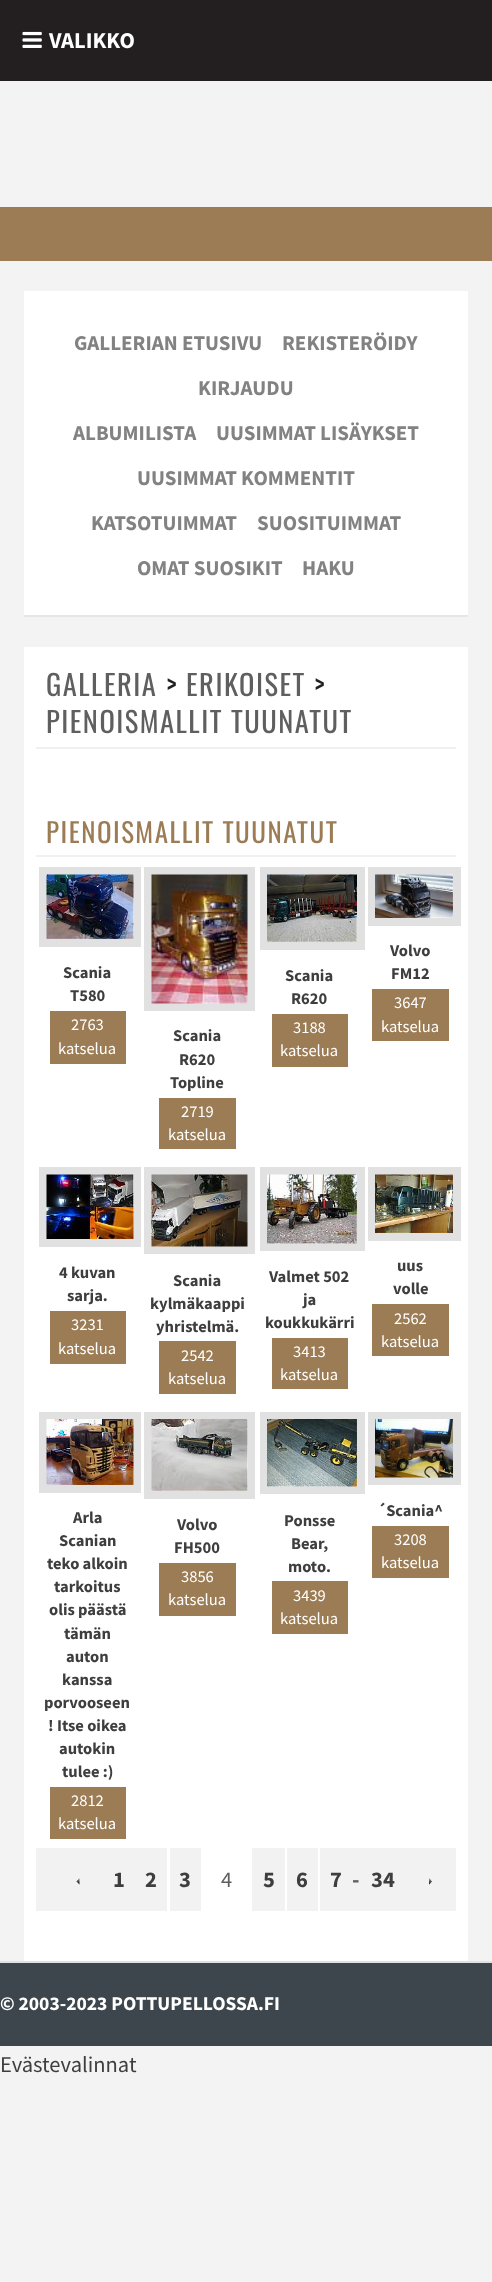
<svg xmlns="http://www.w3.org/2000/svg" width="492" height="2282">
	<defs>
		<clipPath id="clip1"><rect x="266" y="1265" width="88" height="70" /></clipPath>
	</defs>
	<rect width="100%" height="100%" fill="#F3F3F3" />
	<rect x="0" y="0" width="492" height="81" fill="#231F20" />
	<image x="22" y="31" width="20" height="17" href="assets/img1.png" />
	<text x="49" y="48" font-family="Source Sans Pro" font-size="22.5" font-weight="700" fill="#FFFFFF">VALIKKO</text>
	<rect x="0" y="207" width="492" height="54" fill="#9B7C54" />
	<rect x="24" y="291" width="444" height="324" fill="#FFFFFF" />
	<rect x="24" y="615" width="444" height="2" fill="#E6E6E6" />
	<g font-family="Source Sans Pro" font-size="21" font-weight="700" fill="#828282">
		<text x="74" y="350">GALLERIAN ETUSIVU</text>
		<text x="282" y="350">REKISTERÖIDY</text>
		<text x="198" y="395">KIRJAUDU</text>
		<text x="73" y="440">ALBUMILISTA</text>
		<text x="216" y="440">UUSIMMAT LISÄYKSET</text>
		<text x="137" y="485">UUSIMMAT KOMMENTIT</text>
		<text x="91" y="530">KATSOTUIMMAT</text>
		<text x="257" y="530">SUOSITUIMMAT</text>
		<text x="137" y="575">OMAT SUOSIKIT</text>
		<text x="302" y="575">HAKU</text>
	</g>
	<rect x="24" y="647" width="444" height="1314" fill="#FFFFFF" />
	<rect x="36" y="747" width="420" height="2" fill="#F0F0F0" />
	<text x="46" y="696" font-family="Oswald" font-size="28.5" letter-spacing="1.5" fill="#5F5F5F">GALLERIA</text>
	<text x="166" y="696" font-family="Oswald" font-size="28.5" letter-spacing="1.5" fill="#231F20">&gt;</text>
	<text x="186" y="696" font-family="Oswald" font-size="28.5" letter-spacing="1.5" fill="#5F5F5F">ERIKOISET</text>
	<text x="314" y="696" font-family="Oswald" font-size="28.5" letter-spacing="1.5" fill="#231F20">&gt;</text>
	<text x="46" y="733" font-family="Oswald" font-size="28.5" letter-spacing="1.5" fill="#5F5F5F">PIENOISMALLIT TUUNATUT</text>
	<rect x="36" y="855" width="420" height="2" fill="#F0F0F0" />
	<text x="46" y="843" font-family="Oswald" font-size="27" letter-spacing="1.5" fill="#9B7C54">PIENOISMALLIT TUUNATUT</text>
	<rect x="43" y="871" width="94" height="72" fill="none" stroke="#E1E1E1" stroke-width="8" />
	<image x="46" y="874" width="88" height="65" href="assets/img2.png" />
	<g font-family="Source Sans Pro" font-size="16.5" font-weight="700" fill="#3E3E3E">
		<text x="63" y="978">Scania</text>
		<text x="70" y="1001">T580</text>
	</g>
	<rect x="50" y="1011" width="76" height="53" fill="#9B7C54" />
	<g font-family="Source Sans Pro" font-size="16.5" fill="#FFFFFF">
		<text x="71" y="1030">2763</text>
		<text x="58" y="1054">katselua</text>
	</g>
	<rect x="264" y="871" width="97" height="75" fill="none" stroke="#E1E1E1" stroke-width="8" />
	<image x="267" y="874" width="90" height="68" href="assets/img3.png" />
	<g font-family="Source Sans Pro" font-size="16.5" font-weight="700" fill="#3E3E3E">
		<text x="285" y="981">Scania</text>
		<text x="291" y="1004">R620</text>
	</g>
	<rect x="272" y="1014" width="76" height="53" fill="#9B7C54" />
	<g font-family="Source Sans Pro" font-size="16.5" fill="#FFFFFF">
		<text x="293" y="1033">3188</text>
		<text x="280" y="1056">katselua</text>
	</g>
	<rect x="372" y="871" width="85" height="51" fill="none" stroke="#E1E1E1" stroke-width="8" />
	<image x="375" y="874" width="78" height="44" href="assets/img4.png" />
	<g font-family="Source Sans Pro" font-size="16.5" font-weight="700" fill="#3E3E3E">
		<text x="390" y="956">Volvo</text>
		<text x="391" y="979">FM12</text>
	</g>
	<rect x="372" y="989" width="77" height="52" fill="#9B7C54" />
	<g font-family="Source Sans Pro" font-size="16.5" fill="#FFFFFF">
		<text x="394" y="1008">3647</text>
		<text x="381" y="1032">katselua</text>
	</g>
	<rect x="148" y="871" width="103" height="136" fill="none" stroke="#E1E1E1" stroke-width="8" />
	<image x="151" y="874" width="97" height="130" href="assets/img5.png" />
	<g font-family="Source Sans Pro" font-size="16.5" font-weight="700" fill="#3E3E3E">
		<text x="173" y="1041">Scania</text>
		<text x="179" y="1065">R620</text>
		<text x="170" y="1088">Topline</text>
	</g>
	<rect x="159" y="1098" width="77" height="51" fill="#9B7C54" />
	<g font-family="Source Sans Pro" font-size="16.5" fill="#FFFFFF">
		<text x="181" y="1117">2719</text>
		<text x="168" y="1140">katselua</text>
	</g>
	<rect x="43" y="1171" width="94" height="72" fill="none" stroke="#E1E1E1" stroke-width="8" />
	<image x="46" y="1174" width="88" height="65" href="assets/img6.png" />
	<g font-family="Source Sans Pro" font-size="16.5" font-weight="700" fill="#3E3E3E">
		<text x="59" y="1278">4 kuvan</text>
		<text x="67" y="1301">sarja.</text>
	</g>
	<rect x="50" y="1311" width="76" height="53" fill="#9B7C54" />
	<g font-family="Source Sans Pro" font-size="16.5" fill="#FFFFFF">
		<text x="71" y="1330">3231</text>
		<text x="58" y="1354">katselua</text>
	</g>
	<rect x="148" y="1171" width="103" height="79" fill="none" stroke="#E1E1E1" stroke-width="8" />
	<image x="151" y="1174" width="97" height="73" href="assets/img7.png" />
	<g font-family="Source Sans Pro" font-size="16.5" font-weight="700" fill="#3E3E3E">
		<text x="173" y="1286">Scania</text>
		<text x="150" y="1309">kylmäkaappi</text>
		<text x="156" y="1332">yhristelmä.</text>
	</g>
	<rect x="159" y="1341" width="77" height="53" fill="#9B7C54" />
	<g font-family="Source Sans Pro" font-size="16.5" fill="#FFFFFF">
		<text x="181" y="1361">2542</text>
		<text x="168" y="1384">katselua</text>
	</g>
	<rect x="264" y="1171" width="97" height="76" fill="none" stroke="#E1E1E1" stroke-width="8" />
	<image x="267" y="1174" width="90" height="70" href="assets/img8.png" />
	<g font-family="Source Sans Pro" font-size="16.5" font-weight="700" fill="#3E3E3E">
		<text x="269" y="1282">Valmet 502</text>
		<text x="303" y="1305">ja</text>
	</g>
	<g clip-path="url(#clip1)">
		<text x="265" y="1328" font-family="Source Sans Pro" font-size="16.5" font-weight="700" fill="#3E3E3E">koukkukärri</text>
	</g>
	<rect x="272" y="1338" width="76" height="51" fill="#9B7C54" />
	<g font-family="Source Sans Pro" font-size="16.5" fill="#FFFFFF">
		<text x="293" y="1357">3413</text>
		<text x="280" y="1380">katselua</text>
	</g>
	<rect x="372" y="1171" width="85" height="66" fill="none" stroke="#E1E1E1" stroke-width="8" />
	<image x="375" y="1174" width="78" height="59" href="assets/img9.png" />
	<g font-family="Source Sans Pro" font-size="16.5" font-weight="700" fill="#3E3E3E">
		<text x="397" y="1271">uus</text>
		<text x="393" y="1294">volle</text>
	</g>
	<rect x="372" y="1304" width="77" height="52" fill="#9B7C54" />
	<g font-family="Source Sans Pro" font-size="16.5" fill="#FFFFFF">
		<text x="394" y="1324">2562</text>
		<text x="381" y="1347">katselua</text>
	</g>
	<rect x="43" y="1416" width="94" height="73" fill="none" stroke="#E1E1E1" stroke-width="8" />
	<image x="46" y="1419" width="88" height="66" href="assets/img10.png" />
	<g font-family="Source Sans Pro" font-size="16.5" font-weight="700" fill="#3E3E3E">
		<text x="73" y="1523">Arla</text>
		<text x="59" y="1546">Scanian</text>
		<text x="47" y="1569">teko alkoin</text>
		<text x="54" y="1592">tarkoitus</text>
		<text x="49" y="1615">olis päästä</text>
		<text x="64" y="1639">tämän</text>
		<text x="66" y="1662">auton</text>
		<text x="62" y="1685">kanssa</text>
		<text x="44" y="1708">porvooseen</text>
		<text x="48" y="1731">! Itse oikea</text>
		<text x="59" y="1754">autokin</text>
		<text x="62" y="1777">tulee :)</text>
	</g>
	<rect x="50" y="1787" width="76" height="52" fill="#9B7C54" />
	<g font-family="Source Sans Pro" font-size="16.5" fill="#FFFFFF">
		<text x="71" y="1806">2812</text>
		<text x="58" y="1829">katselua</text>
	</g>
	<rect x="148" y="1416" width="103" height="79" fill="none" stroke="#E1E1E1" stroke-width="8" />
	<image x="151" y="1419" width="97" height="72" href="assets/img11.png" />
	<g font-family="Source Sans Pro" font-size="16.5" font-weight="700" fill="#3E3E3E">
		<text x="177" y="1530">Volvo</text>
		<text x="174" y="1553">FH500</text>
	</g>
	<rect x="159" y="1563" width="77" height="53" fill="#9B7C54" />
	<g font-family="Source Sans Pro" font-size="16.5" fill="#FFFFFF">
		<text x="181" y="1582">3856</text>
		<text x="168" y="1605">katselua</text>
	</g>
	<rect x="264" y="1416" width="97" height="74" fill="none" stroke="#E1E1E1" stroke-width="8" />
	<image x="267" y="1419" width="90" height="68" href="assets/img12.png" />
	<g font-family="Source Sans Pro" font-size="16.5" font-weight="700" fill="#3E3E3E">
		<text x="284" y="1526">Ponsse</text>
		<text x="291" y="1549">Bear,</text>
		<text x="288" y="1572">moto.</text>
	</g>
	<rect x="272" y="1581" width="76" height="53" fill="#9B7C54" />
	<g font-family="Source Sans Pro" font-size="16.5" fill="#FFFFFF">
		<text x="293" y="1601">3439</text>
		<text x="280" y="1624">katselua</text>
	</g>
	<rect x="372" y="1416" width="85" height="65" fill="none" stroke="#E1E1E1" stroke-width="8" />
	<image x="375" y="1419" width="78" height="59" href="assets/img13.png" />
	<text x="377" y="1516" font-family="Source Sans Pro" font-size="16.5" font-weight="700" fill="#3E3E3E">´Scania^</text>
	<rect x="372" y="1526" width="77" height="52" fill="#9B7C54" />
	<g font-family="Source Sans Pro" font-size="16.5" fill="#FFFFFF">
		<text x="394" y="1545">3208</text>
		<text x="381" y="1568">katselua</text>
	</g>
	<rect x="36" y="1848" width="131" height="63" fill="#F2F2F2" />
	<image x="76" y="1878" width="4" height="7" href="assets/img14.png" />
	<g font-family="Source Sans Pro" font-size="22.5" font-weight="700" fill="#3E3E3E">
		<text x="113" y="1887">1</text>
		<text x="145" y="1887">2</text>
	</g>
	<rect x="170" y="1848" width="31" height="63" fill="#F2F2F2" />
	<text x="179" y="1887" font-family="Source Sans Pro" font-size="22.5" font-weight="700" fill="#3E3E3E">3</text>
	<text x="221" y="1887" font-family="Source Sans Pro" font-size="22.5" fill="#5F5F5F">4</text>
	<rect x="252" y="1848" width="33" height="63" fill="#F2F2F2" />
	<text x="263" y="1887" font-family="Source Sans Pro" font-size="22.5" font-weight="700" fill="#3E3E3E">5</text>
	<rect x="287" y="1848" width="31" height="63" fill="#F2F2F2" />
	<text x="296" y="1887" font-family="Source Sans Pro" font-size="22.5" font-weight="700" fill="#3E3E3E">6</text>
	<rect x="320" y="1848" width="136" height="63" fill="#F2F2F2" />
	<text x="330" y="1887" font-family="Source Sans Pro" font-size="22.5" font-weight="700" fill="#3E3E3E">7</text>
	<text x="352" y="1887" font-family="Source Sans Pro" font-size="22.5" font-weight="700" fill="#5F5F5F">-</text>
	<text x="371" y="1887" font-family="Source Sans Pro" font-size="22.5" font-weight="700" fill="#3E3E3E">34</text>
	<image x="429" y="1878" width="3" height="7" href="assets/img15.png" />
	<rect x="0" y="1963" width="492" height="83" fill="#3D464D" />
	<rect x="0" y="1961" width="492" height="2" fill="#E1E1E1" />
	<text x="0" y="2010" font-family="Source Sans Pro" font-size="19.5" font-weight="700" fill="#FFFFFF">© 2003-2023 POTTUPELLOSSA.FI</text>
	<text x="0" y="2072" font-family="Source Sans Pro" font-size="22.5" fill="#3E3E3E">Evästevalinnat</text>
</svg>
